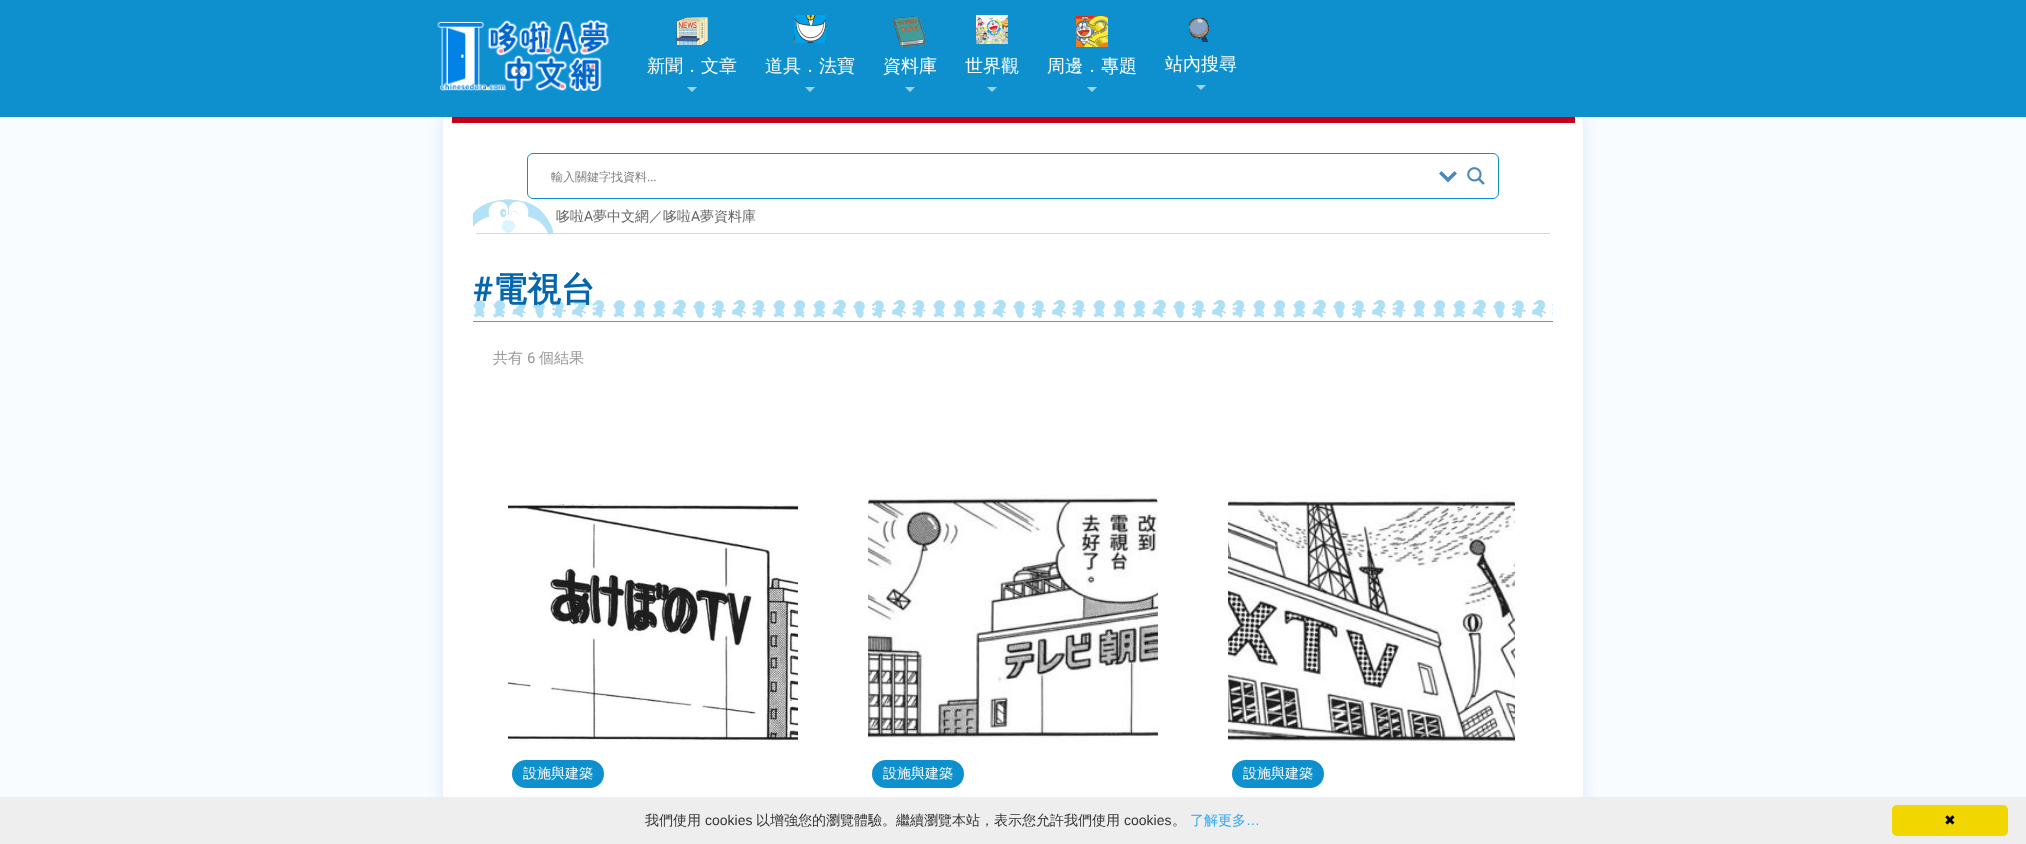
<svg xmlns="http://www.w3.org/2000/svg" width="2026" height="844">
	<rect width="100%" height="100%" fill="#F8FCFF" />
	<rect x="443" y="108" width="1140" height="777" rx="17" fill="#184CEE" fill-opacity="0.12" filter="blur(8px)" />
	<rect x="443" y="106" width="1140" height="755" rx="17" fill="#FFFFFF" />
	<rect x="0" y="0" width="2026" height="117" fill="#0E90CE" />
	<image x="437" y="20" width="173" height="71" href="assets/img1.png" />
	<image x="676" y="17" width="32" height="28" href="assets/img2.png" />
	<text x="647" y="72" font-family="WenQuanYi Zen Hei" font-size="18" font-weight="500" fill="#FFFFFF">新聞．文章</text>
	<path d="M687 87H697L692 92Z" fill="#A1D1E8" />
	<image x="794" y="15" width="32" height="28" href="assets/img3.png" />
	<text x="765" y="72" font-family="WenQuanYi Zen Hei" font-size="18" font-weight="500" fill="#FFFFFF">道具．法寶</text>
	<path d="M805 87H815L810 92Z" fill="#A1D1E8" />
	<image x="894" y="16" width="32" height="31" href="assets/img4.png" />
	<text x="883" y="72" font-family="WenQuanYi Zen Hei" font-size="18" font-weight="500" fill="#FFFFFF">資料庫</text>
	<path d="M905 87H915L910 92Z" fill="#A1D1E8" />
	<image x="976" y="15" width="32" height="29" href="assets/img5.png" />
	<text x="965" y="72" font-family="WenQuanYi Zen Hei" font-size="18" font-weight="500" fill="#FFFFFF">世界觀</text>
	<path d="M987 87H997L992 92Z" fill="#A1D1E8" />
	<image x="1076" y="16" width="32" height="31" href="assets/img6.png" />
	<text x="1047" y="72" font-family="WenQuanYi Zen Hei" font-size="18" font-weight="500" fill="#FFFFFF">周邊．專題</text>
	<path d="M1087 87H1097L1092 92Z" fill="#A1D1E8" />
	<image x="1189" y="18" width="20" height="24" href="assets/img7.png" />
	<text x="1165" y="70" font-family="WenQuanYi Zen Hei" font-size="18" font-weight="500" fill="#FFFFFF">站內搜尋</text>
	<path d="M1196 85H1206L1201 90Z" fill="#A1D1E8" />
	<rect x="452" y="117" width="1123" height="6" fill="#C50018" />
	<rect x="527.5" y="153.5" width="971" height="45" rx="5.5" fill="none" stroke="#0E90CE" />
	<text x="551" y="181" font-family="WenQuanYi Zen Hei" font-size="12" font-weight="500" fill="#7D7D7D">輸入關鍵字找資料</text>
	<text x="647" y="181" font-family="Open Sans" font-size="12" fill="#7D7D7D">...</text>
	<path d="M1454.5 171L1457 173.5L1448 182.5L1439 173.5L1441.5 171L1448 177.5Z" fill="#4A89BF" />
	<image x="1467" y="167" width="18" height="18" href="assets/img8.png" />
	<image x="473" y="199" width="80" height="34" href="assets/img9.png" />
	<rect x="476" y="233" width="1074" height="1" fill="#B2E4F6" />
	<text x="556" y="221" font-family="WenQuanYi Zen Hei" font-size="14" font-weight="500" fill="#666666">哆啦</text>
	<text x="584" y="221" font-family="Roboto" font-size="14" fill="#666666">A</text>
	<text x="593" y="221" font-family="WenQuanYi Zen Hei" font-size="14" font-weight="500" fill="#666666">夢中文網／哆啦</text>
	<text x="691" y="221" font-family="Roboto" font-size="14" fill="#666666">A</text>
	<text x="700" y="221" font-family="WenQuanYi Zen Hei" font-size="14" font-weight="500" fill="#666666">夢資料庫</text>
	<image x="473" y="300" width="1080" height="22" href="assets/img10.png" />
	<text x="473" y="301" font-family="Roboto" font-size="34" font-weight="700" fill="#0467AD">#</text>
	<text x="493" y="301" font-family="WenQuanYi Zen Hei" font-size="34" font-weight="700" fill="#0467AD">電視台</text>
	<text x="493" y="363" font-family="WenQuanYi Zen Hei" font-size="15" font-weight="500" fill="#999999">共有</text>
	<text x="527" y="363" font-family="Roboto" font-size="15" fill="#999999">6</text>
	<text x="539" y="363" font-family="WenQuanYi Zen Hei" font-size="15" font-weight="500" fill="#999999">個結果</text>
	<image x="508" y="500" width="290" height="242" href="assets/img11.png" />
	<rect x="512" y="760" width="92" height="28" rx="14" fill="#0E90CE" />
	<text x="523" y="778" font-family="WenQuanYi Zen Hei" font-size="14" font-weight="500" fill="#FFFFFF">設施與建築</text>
	<image x="868" y="494" width="290" height="250" href="assets/img12.png" />
	<rect x="872" y="760" width="92" height="28" rx="14" fill="#0E90CE" />
	<text x="883" y="778" font-family="WenQuanYi Zen Hei" font-size="14" font-weight="500" fill="#FFFFFF">設施與建築</text>
	<image x="1228" y="494" width="287" height="250" href="assets/img13.png" />
	<rect x="1232" y="760" width="92" height="28" rx="14" fill="#0E90CE" />
	<text x="1243" y="778" font-family="WenQuanYi Zen Hei" font-size="14" font-weight="500" fill="#FFFFFF">設施與建築</text>
	<rect x="0" y="797" width="2026" height="47" fill="#EEEEEE" />
	<text x="645" y="825" font-family="WenQuanYi Zen Hei" font-size="14" font-weight="500" fill="#333333">我們使用</text>
	<text x="705" y="825" font-family="Liberation Sans" font-size="14" fill="#333333">cookies</text>
	<text x="756" y="825" font-family="WenQuanYi Zen Hei" font-size="14" font-weight="500" fill="#333333">以增強您的瀏覽體驗。繼續瀏覽本站，表示您允許我們使用</text>
	<text x="1124" y="825" font-family="Liberation Sans" font-size="14" fill="#333333">cookies</text>
	<text x="1172" y="825" font-family="WenQuanYi Zen Hei" font-size="14" font-weight="500" fill="#333333">。</text>
	<text x="1190" y="825" font-family="WenQuanYi Zen Hei" font-size="14" font-weight="500" fill="#31A8F0">了解更多</text>
	<text x="1246" y="825" font-family="Liberation Sans" font-size="14" fill="#31A8F0">…</text>
	<rect x="1892" y="805" width="116" height="31" rx="5" fill="#F1D600" />
	<text x="1944" y="825" font-family="DejaVu Sans" font-size="14" fill="#000000">✖</text>
</svg>
